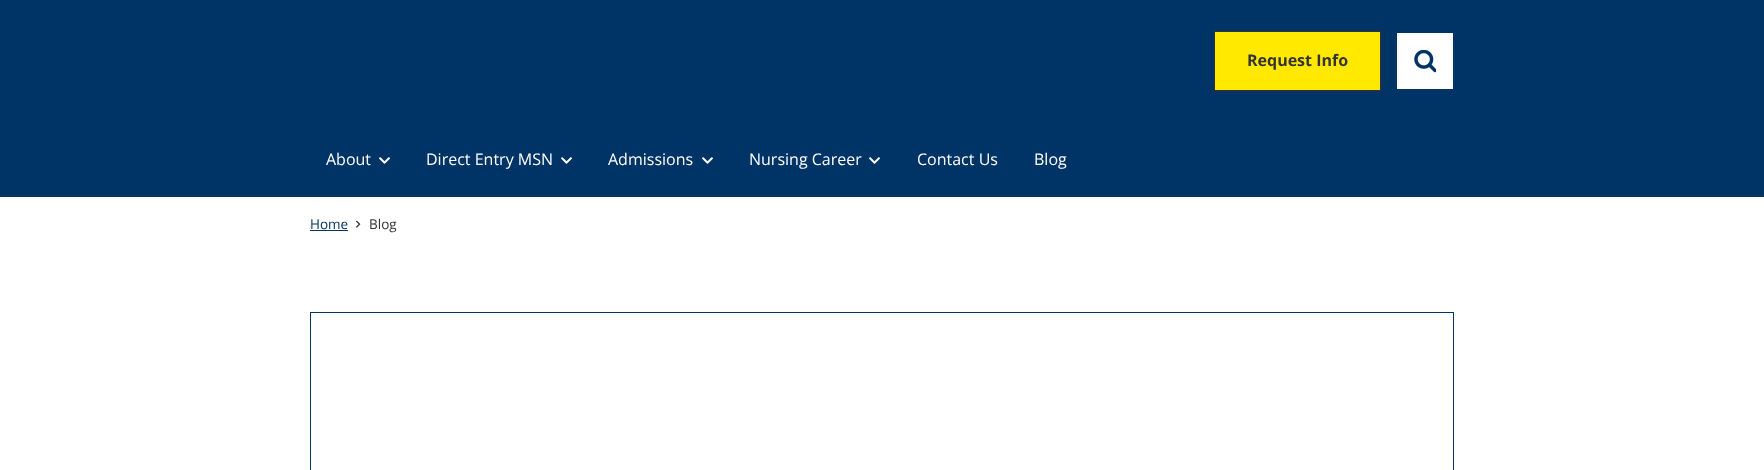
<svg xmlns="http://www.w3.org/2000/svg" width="1764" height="470">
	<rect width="100%" height="100%" fill="#FFFFFF" />
	<rect x="0" y="0" width="1764" height="197" fill="#003366" />
	<rect x="1214.5" y="31.5" width="166" height="59" fill="none" stroke="#333333" />
	<rect x="1215" y="32" width="165" height="58" fill="#FFE900" />
	<text x="1247" y="66" font-family="Open Sans" font-size="16" font-weight="700" fill="#333333">Request Info</text>
	<rect x="1397" y="33" width="56" height="56" fill="#FFFFFF" />
	<image x="1414" y="50" width="22" height="23" href="assets/img1.png" />
	<text x="326" y="165" font-family="Open Sans" font-size="16" fill="#FFFFFF">About</text>
	<image x="379" y="157" width="11" height="7" href="assets/img2.png" />
	<text x="426" y="165" font-family="Open Sans" font-size="16" fill="#FFFFFF">Direct Entry MSN</text>
	<image x="561" y="157" width="11" height="7" href="assets/img2.png" />
	<text x="608" y="165" font-family="Open Sans" font-size="16" fill="#FFFFFF">Admissions</text>
	<image x="702" y="157" width="11" height="7" href="assets/img2.png" />
	<text x="749" y="165" font-family="Open Sans" font-size="16" fill="#FFFFFF">Nursing Career</text>
	<image x="869" y="157" width="11" height="7" href="assets/img2.png" />
	<g font-family="Open Sans" font-size="16" fill="#FFFFFF">
		<text x="917" y="165">Contact Us</text>
		<text x="1034" y="165">Blog</text>
	</g>
	<text x="310" y="229" font-family="Open Sans" font-size="13.5" fill="#003366">Home</text>
	<rect x="310" y="230" width="38" height="1" fill="#003366" />
	<image x="356" y="220" width="5" height="8" href="assets/img3.png" />
	<text x="369" y="229" font-family="Open Sans" font-size="13.5" fill="#333333">Blog</text>
	<rect x="310.5" y="312.5" width="1143" height="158" fill="none" stroke="#003366" />
</svg>
